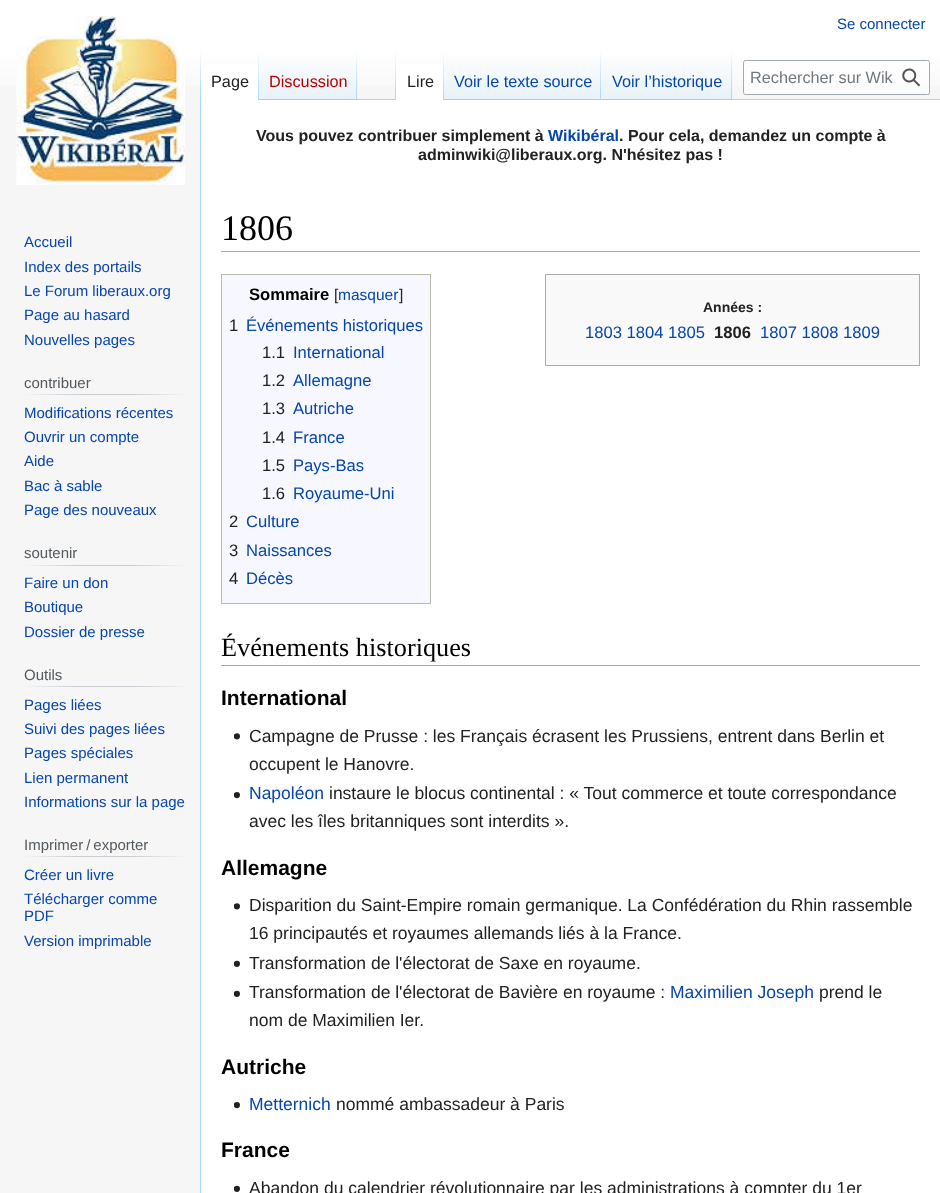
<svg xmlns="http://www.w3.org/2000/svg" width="940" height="1193">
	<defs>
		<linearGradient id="g1" gradientUnits="userSpaceOnUse" x1="470" y1="0" x2="470" y2="100"><stop offset="0.5" stop-color="#FFFFFF" /><stop offset="1" stop-color="#F6F6F6" /></linearGradient>
		<linearGradient id="g2" gradientUnits="userSpaceOnUse" x1="201" y1="50" x2="201" y2="100"><stop offset="0" stop-color="#A7D7F9" stop-opacity="0" /><stop offset="1" stop-color="#A7D7F9" /></linearGradient>
		<linearGradient id="g3" gradientUnits="userSpaceOnUse" x1="258" y1="50" x2="258" y2="100"><stop offset="0" stop-color="#FFFFFF" /><stop offset="1" stop-color="#A7D7F9" /></linearGradient>
		<linearGradient id="g4" gradientUnits="userSpaceOnUse" x1="308" y1="100" x2="308" y2="50"><stop offset="0" stop-color="#77C1F6" /><stop offset="0.03" stop-color="#E8F2F8" /><stop offset="1" stop-color="#FFFFFF" /></linearGradient>
		<linearGradient id="g5" gradientUnits="userSpaceOnUse" x1="357" y1="50" x2="357" y2="100"><stop offset="0" stop-color="#A7D7F9" stop-opacity="0" /><stop offset="1" stop-color="#A7D7F9" /></linearGradient>
		<linearGradient id="g6" gradientUnits="userSpaceOnUse" x1="396" y1="50" x2="396" y2="100"><stop offset="0" stop-color="#A7D7F9" stop-opacity="0" /><stop offset="1" stop-color="#A7D7F9" /></linearGradient>
		<linearGradient id="g7" gradientUnits="userSpaceOnUse" x1="443" y1="50" x2="443" y2="100"><stop offset="0" stop-color="#FFFFFF" /><stop offset="1" stop-color="#A7D7F9" /></linearGradient>
		<linearGradient id="g8" gradientUnits="userSpaceOnUse" x1="523" y1="100" x2="523" y2="50"><stop offset="0" stop-color="#77C1F6" /><stop offset="0.03" stop-color="#E8F2F8" /><stop offset="1" stop-color="#FFFFFF" /></linearGradient>
		<linearGradient id="g9" gradientUnits="userSpaceOnUse" x1="601" y1="50" x2="601" y2="100"><stop offset="0" stop-color="#A7D7F9" stop-opacity="0" /><stop offset="1" stop-color="#A7D7F9" /></linearGradient>
		<linearGradient id="g10" gradientUnits="userSpaceOnUse" x1="667" y1="100" x2="667" y2="50"><stop offset="0" stop-color="#77C1F6" /><stop offset="0.03" stop-color="#E8F2F8" /><stop offset="1" stop-color="#FFFFFF" /></linearGradient>
		<linearGradient id="g11" gradientUnits="userSpaceOnUse" x1="732" y1="50" x2="732" y2="100"><stop offset="0" stop-color="#A7D7F9" stop-opacity="0" /><stop offset="1" stop-color="#A7D7F9" /></linearGradient>
		<linearGradient id="g12" gradientUnits="userSpaceOnUse" x1="24" y1="394" x2="188" y2="394"><stop offset="0" stop-color="#F6F6F6" /><stop offset="0.33" stop-color="#C8CCD1" /><stop offset="0.66" stop-color="#C8CCD1" /><stop offset="1" stop-color="#F6F6F6" /></linearGradient>
		<linearGradient id="g13" gradientUnits="userSpaceOnUse" x1="24" y1="566" x2="188" y2="566"><stop offset="0" stop-color="#F6F6F6" /><stop offset="0.33" stop-color="#C8CCD1" /><stop offset="0.66" stop-color="#C8CCD1" /><stop offset="1" stop-color="#F6F6F6" /></linearGradient>
		<linearGradient id="g14" gradientUnits="userSpaceOnUse" x1="24" y1="687" x2="188" y2="687"><stop offset="0" stop-color="#F6F6F6" /><stop offset="0.33" stop-color="#C8CCD1" /><stop offset="0.66" stop-color="#C8CCD1" /><stop offset="1" stop-color="#F6F6F6" /></linearGradient>
		<linearGradient id="g15" gradientUnits="userSpaceOnUse" x1="24" y1="857" x2="188" y2="857"><stop offset="0" stop-color="#F6F6F6" /><stop offset="0.33" stop-color="#C8CCD1" /><stop offset="0.66" stop-color="#C8CCD1" /><stop offset="1" stop-color="#F6F6F6" /></linearGradient>
	</defs>
	<rect width="100%" height="100%" fill="#F6F6F6" />
	<rect x="0" y="0" width="940" height="86" fill="url(#g1)" />
	<text x="837" y="29" font-family="Liberation Sans" font-size="15" fill="#0645AD">Se connecter</text>
	<rect x="200" y="99" width="1" height="1094" fill="#A7D7F9" />
	<rect x="200" y="50" width="1" height="50" fill="url(#g2)" />
	<rect x="201" y="64" width="57" height="36" fill="#FFFFFF" />
	<rect x="258" y="50" width="1" height="50" fill="url(#g3)" />
	<text x="211" y="87" font-family="Liberation Sans" font-size="16.25" fill="#202122">Page</text>
	<rect x="259" y="57" width="99" height="43" fill="url(#g4)" />
	<rect x="356" y="50" width="1" height="50" fill="url(#g5)" />
	<text x="269" y="87" font-family="Liberation Sans" font-size="16.25" fill="#BA0000">Discussion</text>
	<rect x="358" y="99" width="582" height="1" fill="#A7D7F9" />
	<rect x="395" y="50" width="1" height="50" fill="url(#g6)" />
	<rect x="396" y="64" width="47" height="36" fill="#FFFFFF" />
	<rect x="443" y="50" width="1" height="50" fill="url(#g7)" />
	<text x="407" y="87" font-family="Liberation Sans" font-size="16.25" fill="#202122">Lire</text>
	<rect x="444" y="57" width="157" height="43" fill="url(#g8)" />
	<rect x="600" y="50" width="1" height="50" fill="url(#g9)" />
	<text x="454" y="87" font-family="Liberation Sans" font-size="16.25" fill="#0645AD">Voir le texte source</text>
	<rect x="601" y="57" width="132" height="43" fill="url(#g10)" />
	<rect x="731" y="50" width="1" height="50" fill="url(#g11)" />
	<text x="612" y="87" font-family="Liberation Sans" font-size="16.25" fill="#0645AD">Voir l’historique</text>
	<rect x="743.5" y="60.5" width="186" height="34" rx="2" fill="#FFFFFF" fill-opacity="0.5" stroke="#A2A9B1" />
	<text x="750" y="83" font-family="Liberation Sans" font-size="16.25" fill="#72777D">Rechercher sur Wik</text>
	<image x="902" y="68" width="19" height="19" href="assets/img1.png" />
	<image x="16" y="16" width="169" height="169" href="assets/img2.png" />
	<g font-family="Liberation Sans" font-size="15" fill="#0645AD">
		<text x="24" y="247">Accueil</text>
		<text x="24" y="272">Index des portails</text>
		<text x="24" y="296">Le Forum liberaux.org</text>
		<text x="24" y="320">Page au hasard</text>
		<text x="24" y="345">Nouvelles pages</text>
	</g>
	<rect x="24" y="394" width="164" height="1" fill="url(#g12)" />
	<text x="24" y="388" font-family="Liberation Sans" font-size="15" fill="#54595D">contribuer</text>
	<g font-family="Liberation Sans" font-size="15" fill="#0645AD">
		<text x="24" y="418">Modifications récentes</text>
		<text x="24" y="442">Ouvrir un compte</text>
		<text x="24" y="466">Aide</text>
		<text x="24" y="491">Bac à sable</text>
		<text x="24" y="515">Page des nouveaux</text>
	</g>
	<rect x="24" y="565" width="164" height="1" fill="url(#g13)" />
	<text x="24" y="558" font-family="Liberation Sans" font-size="15" fill="#54595D">soutenir</text>
	<g font-family="Liberation Sans" font-size="15" fill="#0645AD">
		<text x="24" y="588">Faire un don</text>
		<text x="24" y="612">Boutique</text>
		<text x="24" y="637">Dossier de presse</text>
	</g>
	<rect x="24" y="686" width="164" height="1" fill="url(#g14)" />
	<text x="24" y="680" font-family="Liberation Sans" font-size="15" fill="#54595D">Outils</text>
	<g font-family="Liberation Sans" font-size="15" fill="#0645AD">
		<text x="24" y="710">Pages liées</text>
		<text x="24" y="734">Suivi des pages liées</text>
		<text x="24" y="758">Pages spéciales</text>
		<text x="24" y="783">Lien permanent</text>
		<text x="24" y="807">Informations sur la page</text>
	</g>
	<rect x="24" y="856" width="164" height="1" fill="url(#g15)" />
	<text x="24" y="850" font-family="Liberation Sans" font-size="15" fill="#54595D">Imprimer / exporter</text>
	<g font-family="Liberation Sans" font-size="15" fill="#0645AD">
		<text x="24" y="880">Créer un livre</text>
		<text x="24" y="904">Télécharger comme</text>
		<text x="24" y="921">PDF</text>
		<text x="24" y="946">Version imprimable</text>
	</g>
	<rect x="201" y="100" width="739" height="1093" fill="#FFFFFF" />
	<text x="256" y="141" font-family="Liberation Sans" font-size="16" font-weight="700" fill="#202122">Vous pouvez contribuer simplement à</text>
	<text x="548" y="141" font-family="Liberation Sans" font-size="16" font-weight="700" fill="#0645AD">Wikibéral</text>
	<g font-family="Liberation Sans" font-size="16" font-weight="700" fill="#202122">
		<text x="619" y="141">. Pour cela, demandez un compte à</text>
		<text x="418" y="160">adminwiki@liberaux.org. N'hésitez pas !</text>
	</g>
	<rect x="221" y="251" width="699" height="1" fill="#A2A9B1" />
	<text x="221" y="240" font-family="Liberation Serif" font-size="36" fill="#000000">1806</text>
	<rect x="221.5" y="274.5" width="209" height="329" fill="#F7F8FF" stroke="#BBBBAA" />
	<text x="249" y="300" font-family="Liberation Sans" font-size="16.6" font-weight="700" fill="#000000">Sommaire</text>
	<text x="334" y="300" font-family="Liberation Sans" font-size="15.5" fill="#202122">[</text>
	<text x="338" y="300" font-family="Liberation Sans" font-size="15.5" fill="#0645AD">masquer</text>
	<text x="399" y="300" font-family="Liberation Sans" font-size="15.5" fill="#202122">]</text>
	<text x="229" y="331" font-family="Liberation Sans" font-size="16.6" fill="#202122">1</text>
	<text x="246" y="331" font-family="Liberation Sans" font-size="16.6" fill="#0645AD">Événements historiques</text>
	<text x="262" y="358" font-family="Liberation Sans" font-size="16.6" fill="#202122">1.1</text>
	<text x="293" y="358" font-family="Liberation Sans" font-size="16.6" fill="#0645AD">International</text>
	<text x="262" y="386" font-family="Liberation Sans" font-size="16.6" fill="#202122">1.2</text>
	<text x="293" y="386" font-family="Liberation Sans" font-size="16.6" fill="#0645AD">Allemagne</text>
	<text x="262" y="414" font-family="Liberation Sans" font-size="16.6" fill="#202122">1.3</text>
	<text x="293" y="414" font-family="Liberation Sans" font-size="16.6" fill="#0645AD">Autriche</text>
	<text x="262" y="443" font-family="Liberation Sans" font-size="16.6" fill="#202122">1.4</text>
	<text x="293" y="443" font-family="Liberation Sans" font-size="16.6" fill="#0645AD">France</text>
	<text x="262" y="471" font-family="Liberation Sans" font-size="16.6" fill="#202122">1.5</text>
	<text x="293" y="471" font-family="Liberation Sans" font-size="16.6" fill="#0645AD">Pays-Bas</text>
	<text x="262" y="499" font-family="Liberation Sans" font-size="16.6" fill="#202122">1.6</text>
	<text x="293" y="499" font-family="Liberation Sans" font-size="16.6" fill="#0645AD">Royaume-Uni</text>
	<text x="229" y="527" font-family="Liberation Sans" font-size="16.6" fill="#202122">2</text>
	<text x="246" y="527" font-family="Liberation Sans" font-size="16.6" fill="#0645AD">Culture</text>
	<text x="229" y="556" font-family="Liberation Sans" font-size="16.6" fill="#202122">3</text>
	<text x="246" y="556" font-family="Liberation Sans" font-size="16.6" fill="#0645AD">Naissances</text>
	<text x="229" y="584" font-family="Liberation Sans" font-size="16.6" fill="#202122">4</text>
	<text x="246" y="584" font-family="Liberation Sans" font-size="16.6" fill="#0645AD">Décès</text>
	<rect x="545.5" y="274.5" width="374" height="91" fill="#F9F9F9" stroke="#AAAAAA" />
	<text x="703" y="312" font-family="Liberation Sans" font-size="14" font-weight="700" fill="#202122">Années :</text>
	<text x="585" y="338" font-family="Liberation Sans" font-size="16.6" fill="#0645AD">1803 1804 1805</text>
	<text x="714" y="338" font-family="Liberation Sans" font-size="16.6" font-weight="700" fill="#202122">1806</text>
	<text x="760" y="338" font-family="Liberation Sans" font-size="16.6" fill="#0645AD">1807 1808 1809</text>
	<rect x="221" y="665" width="699" height="1" fill="#A2A9B1" />
	<text x="221" y="656" font-family="Liberation Serif" font-size="26.25" fill="#000000">Événements historiques</text>
	<text x="221" y="705" font-family="Liberation Sans" font-size="21" font-weight="700" fill="#000000">International</text>
	<image x="234" y="733" width="6" height="7" href="assets/img3.png" />
	<g font-family="Liberation Sans" font-size="17.5" fill="#202122">
		<text x="249" y="742">Campagne de Prusse : les Français écrasent les Prussiens, entrent dans Berlin et</text>
		<text x="249" y="770">occupent le Hanovre.</text>
	</g>
	<image x="234" y="792" width="6" height="7" href="assets/img4.png" />
	<text x="249" y="799" font-family="Liberation Sans" font-size="17.5" fill="#0645AD">Napoléon</text>
	<g font-family="Liberation Sans" font-size="17.5" fill="#202122">
		<text x="329" y="799">instaure le blocus continental : « Tout commerce et toute correspondance</text>
		<text x="249" y="827">avec les îles britanniques sont interdits ».</text>
	</g>
	<text x="221" y="875" font-family="Liberation Sans" font-size="21" font-weight="700" fill="#000000">Allemagne</text>
	<image x="234" y="903" width="6" height="7" href="assets/img3.png" />
	<g font-family="Liberation Sans" font-size="17.5" fill="#202122">
		<text x="249" y="911">Disparition du Saint-Empire romain germanique. La Confédération du Rhin rassemble</text>
		<text x="249" y="939">16 principautés et royaumes allemands liés à la France.</text>
	</g>
	<image x="234" y="960" width="6" height="7" href="assets/img5.png" />
	<text x="249" y="969" font-family="Liberation Sans" font-size="17.5" fill="#202122">Transformation de l'électorat de Saxe en royaume.</text>
	<image x="234" y="990" width="6" height="7" href="assets/img5.png" />
	<text x="249" y="998" font-family="Liberation Sans" font-size="17.5" fill="#202122">Transformation de l'électorat de Bavière en royaume :</text>
	<text x="670" y="998" font-family="Liberation Sans" font-size="17.5" fill="#0645AD">Maximilien Joseph</text>
	<g font-family="Liberation Sans" font-size="17.5" fill="#202122">
		<text x="819" y="998">prend le</text>
		<text x="249" y="1026">nom de Maximilien Ier.</text>
	</g>
	<text x="221" y="1074" font-family="Liberation Sans" font-size="21" font-weight="700" fill="#000000">Autriche</text>
	<image x="234" y="1102" width="6" height="7" href="assets/img4.png" />
	<text x="249" y="1110" font-family="Liberation Sans" font-size="17.5" fill="#0645AD">Metternich</text>
	<text x="336" y="1110" font-family="Liberation Sans" font-size="17.5" fill="#202122">nommé ambassadeur à Paris</text>
	<text x="221" y="1157" font-family="Liberation Sans" font-size="21" font-weight="700" fill="#000000">France</text>
	<image x="234" y="1185" width="6" height="7" href="assets/img5.png" />
	<text x="249" y="1194" font-family="Liberation Sans" font-size="17.5" fill="#202122">Abandon du calendrier révolutionnaire par les administrations à compter du 1er</text>
</svg>
